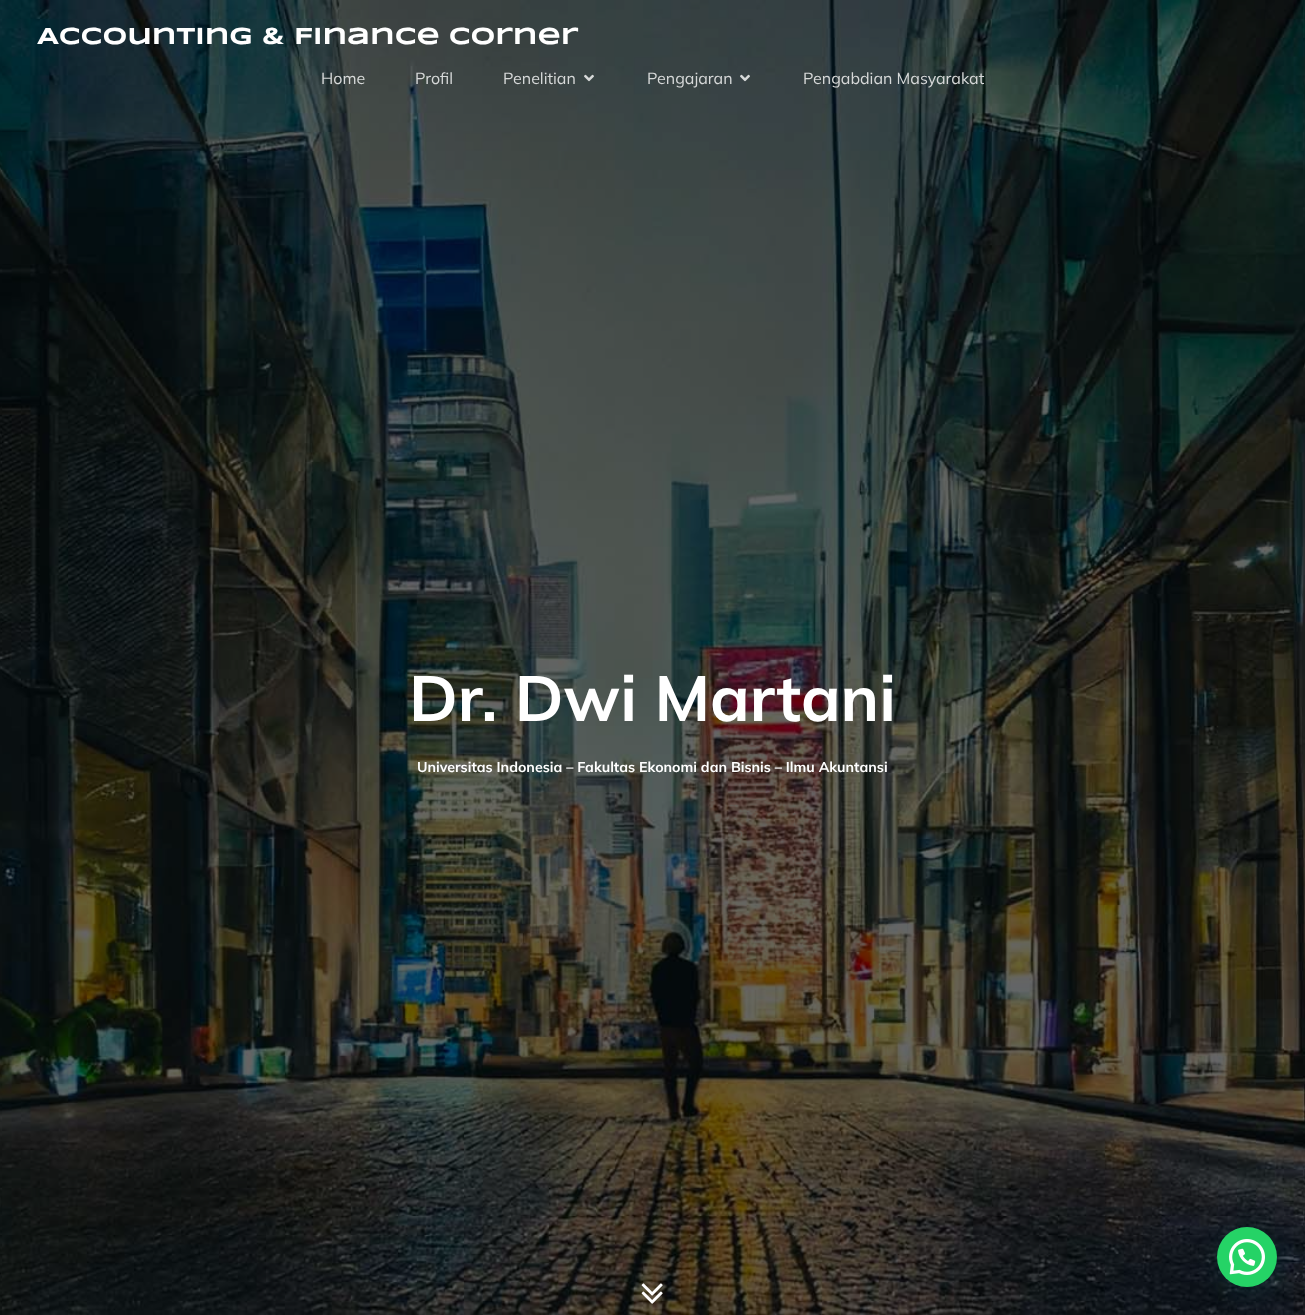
<svg xmlns="http://www.w3.org/2000/svg" width="1305" height="1315">
	<rect width="100%" height="100%" fill="#FFFFFF" />
	<image x="0" y="0" width="1305" height="1315" href="assets/img3.png" />
	<text x="37" y="44" font-family="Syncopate" font-size="24" font-weight="700" fill="#FFFFFF">Accounting &amp; Finance Corner</text>
	<g font-family="Mulish" font-size="16" fill="#D7D9D9">
		<text x="321" y="84">Home</text>
		<text x="415" y="84">Profil</text>
		<text x="503" y="84">Penelitian</text>
	</g>
	<image x="584" y="74" width="10" height="8" href="assets/img1.png" />
	<text x="647" y="84" font-family="Mulish" font-size="16" fill="#D7D9D9">Pengajaran</text>
	<image x="740" y="74" width="10" height="8" href="assets/img2.png" />
	<text x="803" y="84" font-family="Mulish" font-size="16" fill="#D7D9D9">Pengabdian Masyarakat</text>
	<text x="409" y="721" font-family="Mulish" font-size="64" font-weight="700" fill="#FFFFFF">Dr. Dwi Martani</text>
	<text x="417" y="772" font-family="Mulish" font-size="14.2" font-weight="700" fill="#FFFFFF">Universitas Indonesia – Fakultas Ekonomi dan Bisnis – Ilmu Akuntansi</text>
	<image x="641" y="1283" width="22" height="21" href="assets/img4.png" />
	<rect x="1218" y="1233" width="60" height="60" rx="30" fill="#075E54" fill-opacity="0.24" filter="blur(12px)" />
	<circle cx="1247" cy="1257" r="30" fill="#25D366" />
	<image x="1229" y="1239" width="36" height="36" href="assets/img5.png" />
</svg>
